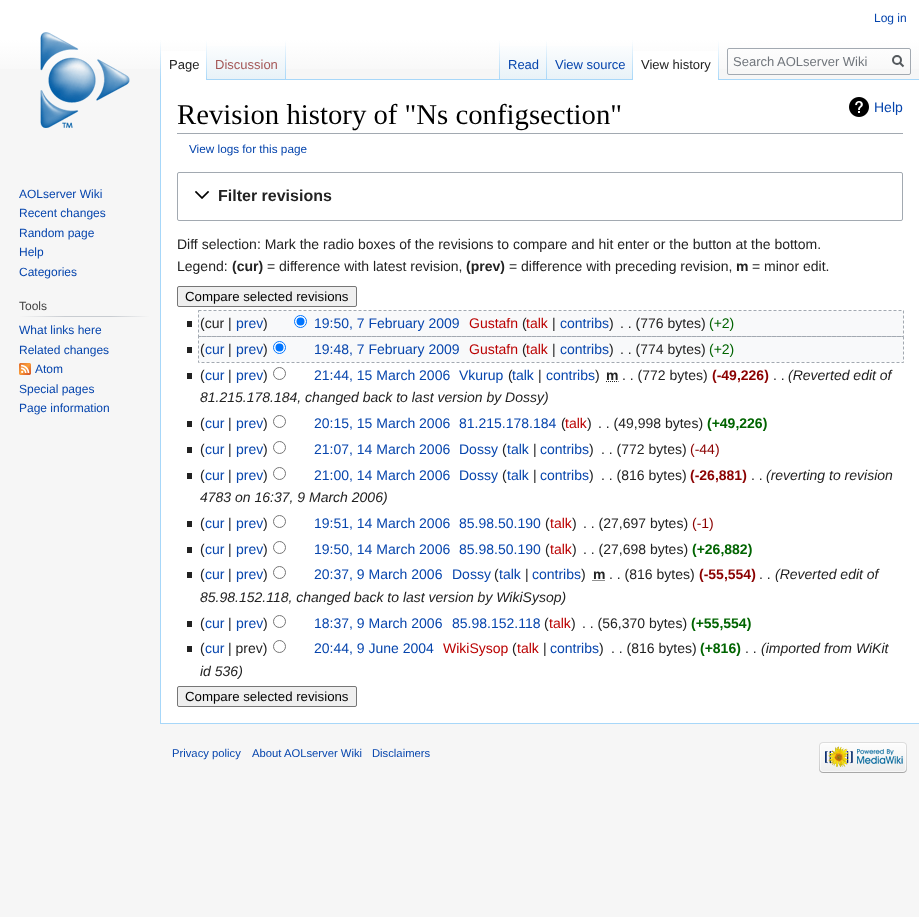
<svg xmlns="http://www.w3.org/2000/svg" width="919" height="917">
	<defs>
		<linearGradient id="g1" gradientUnits="userSpaceOnUse" x1="460" y1="0" x2="460" y2="80"><stop offset="0.5" stop-color="#FFFFFF" /><stop offset="1" stop-color="#F6F6F6" /></linearGradient>
		<linearGradient id="g2" gradientUnits="userSpaceOnUse" x1="161" y1="40" x2="161" y2="80"><stop offset="0" stop-color="#A7D7F9" stop-opacity="0" /><stop offset="1" stop-color="#A7D7F9" /></linearGradient>
		<linearGradient id="g3" gradientUnits="userSpaceOnUse" x1="207" y1="40" x2="207" y2="80"><stop offset="0" stop-color="#FFFFFF" /><stop offset="1" stop-color="#A7D7F9" /></linearGradient>
		<linearGradient id="g4" gradientUnits="userSpaceOnUse" x1="247" y1="80" x2="247" y2="40"><stop offset="0" stop-color="#77C1F6" /><stop offset="0.03" stop-color="#E8F2F8" /><stop offset="1" stop-color="#FFFFFF" /></linearGradient>
		<linearGradient id="g5" gradientUnits="userSpaceOnUse" x1="286" y1="40" x2="286" y2="80"><stop offset="0" stop-color="#A7D7F9" stop-opacity="0" /><stop offset="1" stop-color="#A7D7F9" /></linearGradient>
		<linearGradient id="g6" gradientUnits="userSpaceOnUse" x1="500" y1="40" x2="500" y2="80"><stop offset="0" stop-color="#A7D7F9" stop-opacity="0" /><stop offset="1" stop-color="#A7D7F9" /></linearGradient>
		<linearGradient id="g7" gradientUnits="userSpaceOnUse" x1="524" y1="80" x2="524" y2="40"><stop offset="0" stop-color="#77C1F6" /><stop offset="0.03" stop-color="#E8F2F8" /><stop offset="1" stop-color="#FFFFFF" /></linearGradient>
		<linearGradient id="g8" gradientUnits="userSpaceOnUse" x1="547" y1="40" x2="547" y2="80"><stop offset="0" stop-color="#A7D7F9" stop-opacity="0" /><stop offset="1" stop-color="#A7D7F9" /></linearGradient>
		<linearGradient id="g9" gradientUnits="userSpaceOnUse" x1="590" y1="80" x2="590" y2="40"><stop offset="0" stop-color="#77C1F6" /><stop offset="0.03" stop-color="#E8F2F8" /><stop offset="1" stop-color="#FFFFFF" /></linearGradient>
		<linearGradient id="g10" gradientUnits="userSpaceOnUse" x1="633" y1="40" x2="633" y2="80"><stop offset="0" stop-color="#A7D7F9" stop-opacity="0" /><stop offset="1" stop-color="#A7D7F9" /></linearGradient>
		<linearGradient id="g11" gradientUnits="userSpaceOnUse" x1="719" y1="40" x2="719" y2="80"><stop offset="0" stop-color="#FFFFFF" /><stop offset="1" stop-color="#A7D7F9" /></linearGradient>
		<linearGradient id="g12" gradientUnits="userSpaceOnUse" x1="19" y1="317" x2="150" y2="317"><stop offset="0" stop-color="#F6F6F6" /><stop offset="0.35" stop-color="#C8CCD1" /><stop offset="0.7" stop-color="#C8CCD1" /><stop offset="1" stop-color="#F6F6F6" /></linearGradient>
	</defs>
	<rect width="100%" height="100%" fill="#F6F6F6" />
	<rect x="0" y="0" width="919" height="69" fill="url(#g1)" />
	<text x="874" y="22" font-family="Liberation Sans" font-size="12" fill="#0645AD">Log in</text>
	<rect x="160" y="723" width="759" height="1" fill="#A7D7F9" />
	<rect x="160" y="79" width="1" height="645" fill="#A7D7F9" />
	<rect x="160" y="40" width="1" height="40" fill="url(#g2)" />
	<rect x="161" y="51" width="45" height="29" fill="#FFFFFF" />
	<rect x="206" y="40" width="1" height="40" fill="url(#g3)" />
	<text x="169" y="69" font-family="Liberation Sans" font-size="13" fill="#222222">Page</text>
	<rect x="207" y="46" width="79" height="34" fill="url(#g4)" />
	<rect x="285" y="40" width="1" height="40" fill="url(#g5)" />
	<text x="215" y="69" font-family="Liberation Sans" font-size="13" fill="#A55858">Discussion</text>
	<rect x="286" y="79" width="633" height="1" fill="#A7D7F9" />
	<rect x="499" y="40" width="1" height="40" fill="url(#g6)" />
	<rect x="500" y="46" width="47" height="33" fill="url(#g7)" />
	<rect x="546" y="40" width="1" height="40" fill="url(#g8)" />
	<text x="508" y="69" font-family="Liberation Sans" font-size="13" fill="#0645AD">Read</text>
	<rect x="547" y="46" width="86" height="33" fill="url(#g9)" />
	<rect x="632" y="40" width="1" height="40" fill="url(#g10)" />
	<text x="555" y="69" font-family="Liberation Sans" font-size="13" fill="#0645AD">View source</text>
	<rect x="633" y="51" width="85" height="29" fill="#FFFFFF" />
	<rect x="718" y="40" width="1" height="40" fill="url(#g11)" />
	<text x="641" y="69" font-family="Liberation Sans" font-size="13" fill="#222222">View history</text>
	<rect x="727.5" y="48.5" width="183" height="26" rx="1.5" fill="none" stroke="#A2A9B1" />
	<text x="733" y="66" font-family="Liberation Sans" font-size="13" fill="#72777D">Search AOLserver Wiki</text>
	<path d="M903.5 66.5L899.5 62.5" fill="none" stroke="#54595D" stroke-width="2" />
	<circle cx="897" cy="60" r="4" fill="none" stroke="#54595D" stroke-width="2" />
	<image x="40" y="32" width="90" height="96" href="assets/img1.png" />
	<g font-family="Liberation Sans" font-size="12" fill="#0645AD">
		<text x="19" y="198">AOLserver Wiki</text>
		<text x="19" y="217">Recent changes</text>
		<text x="19" y="237">Random page</text>
		<text x="19" y="256">Help</text>
		<text x="19" y="276">Categories</text>
	</g>
	<text x="19" y="310" font-family="Liberation Sans" font-size="12" fill="#444444">Tools</text>
	<rect x="19" y="316" width="131" height="1" fill="url(#g12)" />
	<g font-family="Liberation Sans" font-size="12" fill="#0645AD">
		<text x="19" y="334">What links here</text>
		<text x="19" y="354">Related changes</text>
	</g>
	<image x="19" y="363" width="12" height="12" href="assets/img2.png" />
	<g font-family="Liberation Sans" font-size="12" fill="#0645AD">
		<text x="35" y="373">Atom</text>
		<text x="19" y="393">Special pages</text>
		<text x="19" y="412">Page information</text>
	</g>
	<rect x="161" y="80" width="758" height="643" fill="#FFFFFF" />
	<rect x="177" y="133" width="726" height="1" fill="#A2A9B1" />
	<text x="177" y="124" font-family="Liberation Serif" font-size="28.75" fill="#000000">Revision history of "Ns configsection"</text>
	<image x="849" y="97" width="20" height="20" href="assets/img3.png" />
	<text x="874" y="112" font-family="Liberation Sans" font-size="14" fill="#0645AD">Help</text>
	<text x="189" y="153" font-family="Liberation Sans" font-size="11.75" fill="#0645AD">View logs for this page</text>
	<rect x="177.5" y="172.5" width="725" height="48" rx="1.5" fill="none" stroke="#A2A9B1" />
	<image x="195" y="191" width="15" height="8" href="assets/img4.png" />
	<text x="218" y="201" font-family="Liberation Sans" font-size="16" font-weight="700" fill="#222222">Filter revisions</text>
	<g font-family="Liberation Sans" font-size="14" fill="#222222">
		<text x="177" y="249">Diff selection: Mark the radio boxes of the revisions to compare and hit enter or the button at the bottom.</text>
		<text x="177" y="271">Legend:</text>
	</g>
	<text x="232" y="271" font-family="Liberation Sans" font-size="14" font-weight="700" fill="#222222">(cur)</text>
	<text x="267" y="271" font-family="Liberation Sans" font-size="14" fill="#222222">= difference with latest revision,</text>
	<text x="466" y="271" font-family="Liberation Sans" font-size="14" font-weight="700" fill="#222222">(prev)</text>
	<text x="509" y="271" font-family="Liberation Sans" font-size="14" fill="#222222">= difference with preceding revision,</text>
	<text x="736" y="271" font-family="Liberation Sans" font-size="14" font-weight="700" fill="#222222">m</text>
	<text x="752" y="271" font-family="Liberation Sans" font-size="14" fill="#222222">= minor edit.</text>
	<rect x="177.5" y="286.5" width="179" height="20" rx="1.5" fill="#EFEFEF" stroke="#767676" />
	<text x="185" y="301" font-family="Liberation Sans" font-size="13.25" fill="#000000">Compare selected revisions</text>
	<rect x="199" y="311" width="704" height="25" fill="#F8F9FA" />
	<rect x="187" y="321" width="5" height="6" fill="#222222" />
	<text x="200" y="328" font-family="Liberation Sans" font-size="14" fill="#222222">(cur |</text>
	<text x="236" y="328" font-family="Liberation Sans" font-size="14" fill="#0645AD">prev</text>
	<text x="263" y="328" font-family="Liberation Sans" font-size="14" fill="#222222">)</text>
	<circle cx="300.5" cy="321.5" r="6" fill="#FFFFFF" stroke="#0075FF" />
	<circle cx="300.5" cy="321.5" r="4" fill="#0075FF" />
	<text x="314" y="328" font-family="Liberation Sans" font-size="14" fill="#0645AD">19:50, 7 February 2009</text>
	<text x="469" y="328" font-family="Liberation Sans" font-size="14" fill="#BA0000">Gustafn</text>
	<text x="522" y="328" font-family="Liberation Sans" font-size="14" fill="#222222">(</text>
	<text x="526" y="328" font-family="Liberation Sans" font-size="14" fill="#BA0000">talk</text>
	<text x="552" y="328" font-family="Liberation Sans" font-size="14" fill="#222222">|</text>
	<text x="560" y="328" font-family="Liberation Sans" font-size="14" fill="#0645AD">contribs</text>
	<g font-family="Liberation Sans" font-size="14" fill="#222222">
		<text x="609" y="328">)</text>
		<text x="620" y="328">. . (776 bytes)</text>
	</g>
	<text x="709" y="328" font-family="Liberation Sans" font-size="14" fill="#006400">(+2)</text>
	<path d="M198.5 310.5H903.5V336.5H198.5Z" fill="none" stroke="#A2A9B1" stroke-dasharray="3 2" />
	<rect x="199" y="337" width="704" height="25" fill="#F8F9FA" />
	<rect x="187" y="347" width="5" height="6" fill="#222222" />
	<text x="200" y="354" font-family="Liberation Sans" font-size="14" fill="#222222">(</text>
	<text x="205" y="354" font-family="Liberation Sans" font-size="14" fill="#0645AD">cur</text>
	<text x="228" y="354" font-family="Liberation Sans" font-size="14" fill="#222222">|</text>
	<text x="236" y="354" font-family="Liberation Sans" font-size="14" fill="#0645AD">prev</text>
	<text x="263" y="354" font-family="Liberation Sans" font-size="14" fill="#222222">)</text>
	<circle cx="279.5" cy="347.5" r="6" fill="#FFFFFF" stroke="#0075FF" />
	<circle cx="279.5" cy="347.5" r="4" fill="#0075FF" />
	<text x="314" y="354" font-family="Liberation Sans" font-size="14" fill="#0645AD">19:48, 7 February 2009</text>
	<text x="469" y="354" font-family="Liberation Sans" font-size="14" fill="#BA0000">Gustafn</text>
	<text x="522" y="354" font-family="Liberation Sans" font-size="14" fill="#222222">(</text>
	<text x="526" y="354" font-family="Liberation Sans" font-size="14" fill="#BA0000">talk</text>
	<text x="552" y="354" font-family="Liberation Sans" font-size="14" fill="#222222">|</text>
	<text x="560" y="354" font-family="Liberation Sans" font-size="14" fill="#0645AD">contribs</text>
	<g font-family="Liberation Sans" font-size="14" fill="#222222">
		<text x="609" y="354">)</text>
		<text x="620" y="354">. . (774 bytes)</text>
	</g>
	<text x="709" y="354" font-family="Liberation Sans" font-size="14" fill="#006400">(+2)</text>
	<path d="M198.5 336.5H903.5V362.5H198.5Z" fill="none" stroke="#A2A9B1" stroke-dasharray="3 2" />
	<rect x="187" y="373" width="5" height="6" fill="#222222" />
	<text x="200" y="380" font-family="Liberation Sans" font-size="14" fill="#222222">(</text>
	<text x="205" y="380" font-family="Liberation Sans" font-size="14" fill="#0645AD">cur</text>
	<text x="228" y="380" font-family="Liberation Sans" font-size="14" fill="#222222">|</text>
	<text x="236" y="380" font-family="Liberation Sans" font-size="14" fill="#0645AD">prev</text>
	<text x="263" y="380" font-family="Liberation Sans" font-size="14" fill="#222222">)</text>
	<circle cx="279.5" cy="373.5" r="6" fill="none" stroke="#767676" />
	<g font-family="Liberation Sans" font-size="14" fill="#0645AD">
		<text x="314" y="380">21:44, 15 March 2006</text>
		<text x="459" y="380">Vkurup</text>
	</g>
	<text x="508" y="380" font-family="Liberation Sans" font-size="14" fill="#222222">(</text>
	<text x="512" y="380" font-family="Liberation Sans" font-size="14" fill="#0645AD">talk</text>
	<text x="538" y="380" font-family="Liberation Sans" font-size="14" fill="#222222">|</text>
	<text x="546" y="380" font-family="Liberation Sans" font-size="14" fill="#0645AD">contribs</text>
	<text x="595" y="380" font-family="Liberation Sans" font-size="14" fill="#222222">)</text>
	<text x="606" y="380" font-family="Liberation Sans" font-size="14" font-weight="700" fill="#222222">m</text>
	<path d="M606 381.5H618.5" fill="none" stroke="#222222" stroke-dasharray="1 1" />
	<text x="622" y="380" font-family="Liberation Sans" font-size="14" fill="#222222">. . (772 bytes)</text>
	<text x="712" y="380" font-family="Liberation Sans" font-size="14" font-weight="700" fill="#8B0000">(-49,226)</text>
	<text x="773" y="380" font-family="Liberation Sans" font-size="14" fill="#222222">. .</text>
	<g font-family="Liberation Sans" font-size="14" font-style="italic" fill="#222222">
		<text x="788" y="380">(Reverted edit of</text>
		<text x="200" y="402">81.215.178.184, changed back to last version by Dossy)</text>
	</g>
	<rect x="187" y="421" width="5" height="6" fill="#222222" />
	<text x="200" y="428" font-family="Liberation Sans" font-size="14" fill="#222222">(</text>
	<text x="205" y="428" font-family="Liberation Sans" font-size="14" fill="#0645AD">cur</text>
	<text x="228" y="428" font-family="Liberation Sans" font-size="14" fill="#222222">|</text>
	<text x="236" y="428" font-family="Liberation Sans" font-size="14" fill="#0645AD">prev</text>
	<text x="263" y="428" font-family="Liberation Sans" font-size="14" fill="#222222">)</text>
	<circle cx="279.5" cy="421.5" r="6" fill="none" stroke="#767676" />
	<g font-family="Liberation Sans" font-size="14" fill="#0645AD">
		<text x="314" y="428">20:15, 15 March 2006</text>
		<text x="459" y="428">81.215.178.184</text>
	</g>
	<text x="561" y="428" font-family="Liberation Sans" font-size="14" fill="#222222">(</text>
	<text x="565" y="428" font-family="Liberation Sans" font-size="14" fill="#BA0000">talk</text>
	<g font-family="Liberation Sans" font-size="14" fill="#222222">
		<text x="587" y="428">)</text>
		<text x="598" y="428">. . (49,998 bytes)</text>
	</g>
	<text x="707" y="428" font-family="Liberation Sans" font-size="14" font-weight="700" fill="#006400">(+49,226)</text>
	<rect x="187" y="447" width="5" height="6" fill="#222222" />
	<text x="200" y="454" font-family="Liberation Sans" font-size="14" fill="#222222">(</text>
	<text x="205" y="454" font-family="Liberation Sans" font-size="14" fill="#0645AD">cur</text>
	<text x="228" y="454" font-family="Liberation Sans" font-size="14" fill="#222222">|</text>
	<text x="236" y="454" font-family="Liberation Sans" font-size="14" fill="#0645AD">prev</text>
	<text x="263" y="454" font-family="Liberation Sans" font-size="14" fill="#222222">)</text>
	<circle cx="279.5" cy="447.5" r="6" fill="none" stroke="#767676" />
	<g font-family="Liberation Sans" font-size="14" fill="#0645AD">
		<text x="314" y="454">21:07, 14 March 2006</text>
		<text x="459" y="454">Dossy</text>
	</g>
	<text x="502" y="454" font-family="Liberation Sans" font-size="14" fill="#222222">(</text>
	<text x="507" y="454" font-family="Liberation Sans" font-size="14" fill="#0645AD">talk</text>
	<text x="533" y="454" font-family="Liberation Sans" font-size="14" fill="#222222">|</text>
	<text x="540" y="454" font-family="Liberation Sans" font-size="14" fill="#0645AD">contribs</text>
	<g font-family="Liberation Sans" font-size="14" fill="#222222">
		<text x="589" y="454">)</text>
		<text x="601" y="454">. . (772 bytes)</text>
	</g>
	<text x="690" y="454" font-family="Liberation Sans" font-size="14" fill="#8B0000">(-44)</text>
	<rect x="187" y="473" width="5" height="6" fill="#222222" />
	<text x="200" y="480" font-family="Liberation Sans" font-size="14" fill="#222222">(</text>
	<text x="205" y="480" font-family="Liberation Sans" font-size="14" fill="#0645AD">cur</text>
	<text x="228" y="480" font-family="Liberation Sans" font-size="14" fill="#222222">|</text>
	<text x="236" y="480" font-family="Liberation Sans" font-size="14" fill="#0645AD">prev</text>
	<text x="263" y="480" font-family="Liberation Sans" font-size="14" fill="#222222">)</text>
	<circle cx="279.5" cy="473.5" r="6" fill="none" stroke="#767676" />
	<g font-family="Liberation Sans" font-size="14" fill="#0645AD">
		<text x="314" y="480">21:00, 14 March 2006</text>
		<text x="459" y="480">Dossy</text>
	</g>
	<text x="502" y="480" font-family="Liberation Sans" font-size="14" fill="#222222">(</text>
	<text x="507" y="480" font-family="Liberation Sans" font-size="14" fill="#0645AD">talk</text>
	<text x="533" y="480" font-family="Liberation Sans" font-size="14" fill="#222222">|</text>
	<text x="540" y="480" font-family="Liberation Sans" font-size="14" fill="#0645AD">contribs</text>
	<g font-family="Liberation Sans" font-size="14" fill="#222222">
		<text x="589" y="480">)</text>
		<text x="601" y="480">. . (816 bytes)</text>
	</g>
	<text x="690" y="480" font-family="Liberation Sans" font-size="14" font-weight="700" fill="#8B0000">(-26,881)</text>
	<text x="751" y="480" font-family="Liberation Sans" font-size="14" fill="#222222">. .</text>
	<g font-family="Liberation Sans" font-size="14" font-style="italic" fill="#222222">
		<text x="766" y="480">(reverting to revision</text>
		<text x="200" y="502">4783 on 16:37, 9 March 2006)</text>
	</g>
	<rect x="187" y="521" width="5" height="6" fill="#222222" />
	<text x="200" y="528" font-family="Liberation Sans" font-size="14" fill="#222222">(</text>
	<text x="205" y="528" font-family="Liberation Sans" font-size="14" fill="#0645AD">cur</text>
	<text x="228" y="528" font-family="Liberation Sans" font-size="14" fill="#222222">|</text>
	<text x="236" y="528" font-family="Liberation Sans" font-size="14" fill="#0645AD">prev</text>
	<text x="263" y="528" font-family="Liberation Sans" font-size="14" fill="#222222">)</text>
	<circle cx="279.5" cy="521.5" r="6" fill="none" stroke="#767676" />
	<g font-family="Liberation Sans" font-size="14" fill="#0645AD">
		<text x="314" y="528">19:51, 14 March 2006</text>
		<text x="459" y="528">85.98.50.190</text>
	</g>
	<text x="545" y="528" font-family="Liberation Sans" font-size="14" fill="#222222">(</text>
	<text x="550" y="528" font-family="Liberation Sans" font-size="14" fill="#BA0000">talk</text>
	<g font-family="Liberation Sans" font-size="14" fill="#222222">
		<text x="572" y="528">)</text>
		<text x="583" y="528">. . (27,697 bytes)</text>
	</g>
	<text x="692" y="528" font-family="Liberation Sans" font-size="14" fill="#8B0000">(-1)</text>
	<rect x="187" y="547" width="5" height="6" fill="#222222" />
	<text x="200" y="554" font-family="Liberation Sans" font-size="14" fill="#222222">(</text>
	<text x="205" y="554" font-family="Liberation Sans" font-size="14" fill="#0645AD">cur</text>
	<text x="228" y="554" font-family="Liberation Sans" font-size="14" fill="#222222">|</text>
	<text x="236" y="554" font-family="Liberation Sans" font-size="14" fill="#0645AD">prev</text>
	<text x="263" y="554" font-family="Liberation Sans" font-size="14" fill="#222222">)</text>
	<circle cx="279.5" cy="547.5" r="6" fill="none" stroke="#767676" />
	<g font-family="Liberation Sans" font-size="14" fill="#0645AD">
		<text x="314" y="554">19:50, 14 March 2006</text>
		<text x="459" y="554">85.98.50.190</text>
	</g>
	<text x="545" y="554" font-family="Liberation Sans" font-size="14" fill="#222222">(</text>
	<text x="550" y="554" font-family="Liberation Sans" font-size="14" fill="#BA0000">talk</text>
	<g font-family="Liberation Sans" font-size="14" fill="#222222">
		<text x="572" y="554">)</text>
		<text x="583" y="554">. . (27,698 bytes)</text>
	</g>
	<text x="692" y="554" font-family="Liberation Sans" font-size="14" font-weight="700" fill="#006400">(+26,882)</text>
	<rect x="187" y="572" width="5" height="6" fill="#222222" />
	<text x="200" y="579" font-family="Liberation Sans" font-size="14" fill="#222222">(</text>
	<text x="205" y="579" font-family="Liberation Sans" font-size="14" fill="#0645AD">cur</text>
	<text x="228" y="579" font-family="Liberation Sans" font-size="14" fill="#222222">|</text>
	<text x="236" y="579" font-family="Liberation Sans" font-size="14" fill="#0645AD">prev</text>
	<text x="263" y="579" font-family="Liberation Sans" font-size="14" fill="#222222">)</text>
	<circle cx="279.5" cy="572.5" r="6" fill="none" stroke="#767676" />
	<g font-family="Liberation Sans" font-size="14" fill="#0645AD">
		<text x="314" y="579">20:37, 9 March 2006</text>
		<text x="452" y="579">Dossy</text>
	</g>
	<text x="494" y="579" font-family="Liberation Sans" font-size="14" fill="#222222">(</text>
	<text x="499" y="579" font-family="Liberation Sans" font-size="14" fill="#0645AD">talk</text>
	<text x="525" y="579" font-family="Liberation Sans" font-size="14" fill="#222222">|</text>
	<text x="532" y="579" font-family="Liberation Sans" font-size="14" fill="#0645AD">contribs</text>
	<text x="581" y="579" font-family="Liberation Sans" font-size="14" fill="#222222">)</text>
	<text x="593" y="579" font-family="Liberation Sans" font-size="14" font-weight="700" fill="#222222">m</text>
	<path d="M592.5 580.5H605" fill="none" stroke="#222222" stroke-dasharray="1 1" />
	<text x="609" y="579" font-family="Liberation Sans" font-size="14" fill="#222222">. . (816 bytes)</text>
	<text x="699" y="579" font-family="Liberation Sans" font-size="14" font-weight="700" fill="#8B0000">(-55,554)</text>
	<text x="759" y="579" font-family="Liberation Sans" font-size="14" fill="#222222">. .</text>
	<g font-family="Liberation Sans" font-size="14" font-style="italic" fill="#222222">
		<text x="775" y="579">(Reverted edit of</text>
		<text x="200" y="602">85.98.152.118, changed back to last version by WikiSysop)</text>
	</g>
	<rect x="187" y="621" width="5" height="6" fill="#222222" />
	<text x="200" y="628" font-family="Liberation Sans" font-size="14" fill="#222222">(</text>
	<text x="205" y="628" font-family="Liberation Sans" font-size="14" fill="#0645AD">cur</text>
	<text x="228" y="628" font-family="Liberation Sans" font-size="14" fill="#222222">|</text>
	<text x="236" y="628" font-family="Liberation Sans" font-size="14" fill="#0645AD">prev</text>
	<text x="263" y="628" font-family="Liberation Sans" font-size="14" fill="#222222">)</text>
	<circle cx="279.5" cy="621.5" r="6" fill="none" stroke="#767676" />
	<g font-family="Liberation Sans" font-size="14" fill="#0645AD">
		<text x="314" y="628">18:37, 9 March 2006</text>
		<text x="452" y="628">85.98.152.118</text>
	</g>
	<text x="544" y="628" font-family="Liberation Sans" font-size="14" fill="#222222">(</text>
	<text x="549" y="628" font-family="Liberation Sans" font-size="14" fill="#BA0000">talk</text>
	<g font-family="Liberation Sans" font-size="14" fill="#222222">
		<text x="571" y="628">)</text>
		<text x="582" y="628">. . (56,370 bytes)</text>
	</g>
	<text x="691" y="628" font-family="Liberation Sans" font-size="14" font-weight="700" fill="#006400">(+55,554)</text>
	<rect x="187" y="646" width="5" height="6" fill="#222222" />
	<text x="200" y="653" font-family="Liberation Sans" font-size="14" fill="#222222">(</text>
	<text x="205" y="653" font-family="Liberation Sans" font-size="14" fill="#0645AD">cur</text>
	<text x="228" y="653" font-family="Liberation Sans" font-size="14" fill="#222222">| prev)</text>
	<circle cx="279.5" cy="646.5" r="6" fill="none" stroke="#767676" />
	<text x="314" y="653" font-family="Liberation Sans" font-size="14" fill="#0645AD">20:44, 9 June 2004</text>
	<text x="443" y="653" font-family="Liberation Sans" font-size="14" fill="#BA0000">WikiSysop</text>
	<text x="512" y="653" font-family="Liberation Sans" font-size="14" fill="#222222">(</text>
	<text x="517" y="653" font-family="Liberation Sans" font-size="14" fill="#BA0000">talk</text>
	<text x="543" y="653" font-family="Liberation Sans" font-size="14" fill="#222222">|</text>
	<text x="550" y="653" font-family="Liberation Sans" font-size="14" fill="#0645AD">contribs</text>
	<g font-family="Liberation Sans" font-size="14" fill="#222222">
		<text x="599" y="653">)</text>
		<text x="611" y="653">. . (816 bytes)</text>
	</g>
	<text x="700" y="653" font-family="Liberation Sans" font-size="14" font-weight="700" fill="#006400">(+816)</text>
	<text x="745" y="653" font-family="Liberation Sans" font-size="14" fill="#222222">. .</text>
	<g font-family="Liberation Sans" font-size="14" font-style="italic" fill="#222222">
		<text x="761" y="653">(imported from WiKit</text>
		<text x="200" y="676">id 536)</text>
	</g>
	<rect x="177.5" y="686.5" width="179" height="20" rx="1.5" fill="#EFEFEF" stroke="#767676" />
	<text x="185" y="701" font-family="Liberation Sans" font-size="13.25" fill="#000000">Compare selected revisions</text>
	<g font-family="Liberation Sans" font-size="11.25" fill="#0645AD">
		<text x="172" y="757">Privacy policy</text>
		<text x="252" y="757">About AOLserver Wiki</text>
		<text x="372" y="757">Disclaimers</text>
	</g>
	<image x="819" y="742" width="88" height="31" href="assets/img5.png" />
</svg>
